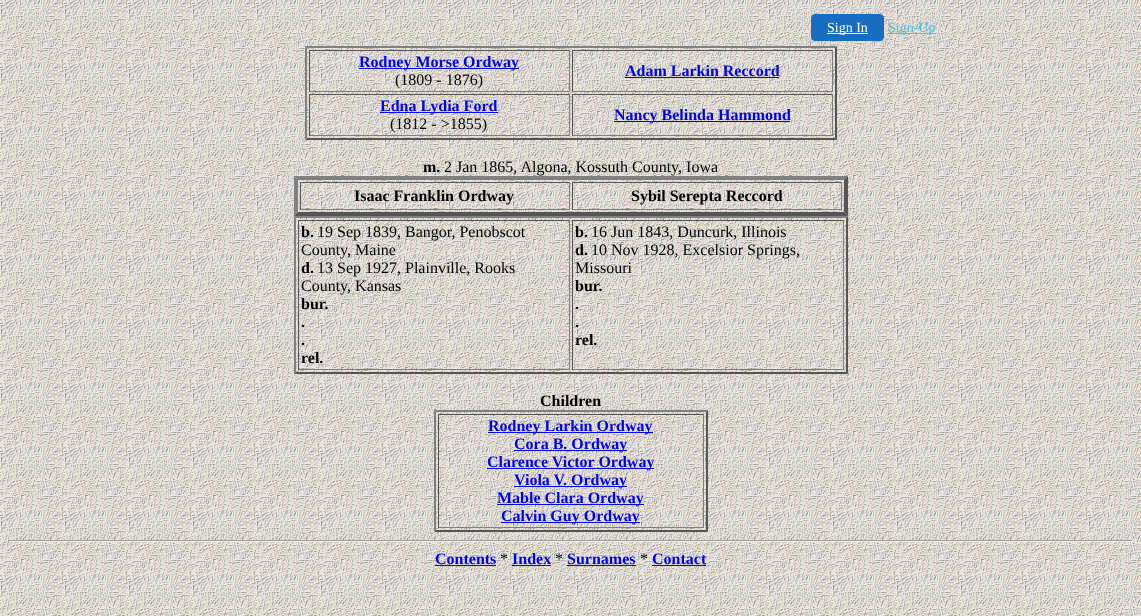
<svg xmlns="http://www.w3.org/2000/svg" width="1141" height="616">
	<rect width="100%" height="100%" fill="#FFFFFF" />
	<image x="0" y="0" width="1141" height="616" href="assets/img1.png" />
	<rect x="811.5" y="14.5" width="72" height="26" rx="3.5" fill="#166DC2" stroke="#166DC2" />
	<rect x="827" y="33" width="41" height="1" fill="#FFFFFF" />
	<text x="827" y="32" font-family="Liberation Serif" font-size="14" fill="#FFFFFF">Sign In</text>
	<rect x="888" y="33" width="48" height="1" fill="#41C5E4" />
	<text x="888" y="32" font-family="Liberation Serif" font-size="14" fill="#41C5E4">Sign-Up</text>
	<path d="M305 46H837L835 48H307Z" fill="#808080" />
	<path d="M837 46V140L835 138V48Z" fill="#555555" />
	<path d="M837 140H305L307 138H835Z" fill="#555555" />
	<path d="M305 140V46L307 48V138Z" fill="#808080" />
	<rect x="309" y="50" width="261" height="1" fill="#555555" />
	<rect x="569" y="50" width="1" height="42" fill="#808080" />
	<rect x="309" y="91" width="261" height="1" fill="#808080" />
	<rect x="309" y="50" width="1" height="42" fill="#555555" />
	<rect x="359" y="68" width="160" height="1" fill="#0000EE" />
	<text x="359" y="67" font-family="Liberation Serif" font-size="16" font-weight="700" fill="#0000EE">Rodney Morse Ordway</text>
	<text x="395" y="85" font-family="Liberation Serif" font-size="16" fill="#000000">(1809 - 1876)</text>
	<rect x="572" y="50" width="261" height="1" fill="#555555" />
	<rect x="832" y="50" width="1" height="42" fill="#808080" />
	<rect x="572" y="91" width="261" height="1" fill="#808080" />
	<rect x="572" y="50" width="1" height="42" fill="#555555" />
	<text x="625" y="76" font-family="Liberation Serif" font-size="16" font-weight="700" fill="#0000EE">Adam Larkin Reccord</text>
	<rect x="625" y="77" width="154" height="1" fill="#0000EE" />
	<rect x="309" y="94" width="261" height="1" fill="#555555" />
	<rect x="569" y="94" width="1" height="42" fill="#808080" />
	<rect x="309" y="135" width="261" height="1" fill="#808080" />
	<rect x="309" y="94" width="1" height="42" fill="#555555" />
	<rect x="380" y="112" width="118" height="1" fill="#0000EE" />
	<text x="380" y="111" font-family="Liberation Serif" font-size="16" font-weight="700" fill="#0000EE">Edna Lydia Ford</text>
	<text x="390" y="129" font-family="Liberation Serif" font-size="16" fill="#000000">(1812 - &gt;1855)</text>
	<rect x="572" y="94" width="261" height="1" fill="#555555" />
	<rect x="832" y="94" width="1" height="42" fill="#808080" />
	<rect x="572" y="135" width="261" height="1" fill="#808080" />
	<rect x="572" y="94" width="1" height="42" fill="#555555" />
	<rect x="614" y="121" width="176" height="1" fill="#0000EE" />
	<text x="614" y="120" font-family="Liberation Serif" font-size="16" font-weight="700" fill="#0000EE">Nancy Belinda Hammond</text>
	<text x="423" y="172" font-family="Liberation Serif" font-size="16" font-weight="700" fill="#000000">m.</text>
	<text x="444" y="172" font-family="Liberation Serif" font-size="16" fill="#000000">2 Jan 1865, Algona, Kossuth County, Iowa</text>
	<path d="M294 176H848L844 180H298Z" fill="#808080" />
	<path d="M848 176V216L844 212V180Z" fill="#555555" />
	<path d="M848 216H294L298 212H844Z" fill="#555555" />
	<path d="M294 216V176L298 180V212Z" fill="#808080" />
	<rect x="300" y="182" width="270" height="1" fill="#555555" />
	<rect x="569" y="182" width="1" height="28" fill="#808080" />
	<rect x="300" y="209" width="270" height="1" fill="#808080" />
	<rect x="300" y="182" width="1" height="28" fill="#555555" />
	<text x="354" y="201" font-family="Liberation Serif" font-size="16" font-weight="700" fill="#000000">Isaac Franklin Ordway</text>
	<rect x="572" y="182" width="270" height="1" fill="#555555" />
	<rect x="841" y="182" width="1" height="28" fill="#808080" />
	<rect x="572" y="209" width="270" height="1" fill="#808080" />
	<rect x="572" y="182" width="1" height="28" fill="#555555" />
	<text x="631" y="201" font-family="Liberation Serif" font-size="16" font-weight="700" fill="#000000">Sybil Serepta Reccord</text>
	<path d="M294 216H848L846 218H296Z" fill="#808080" />
	<path d="M848 216V374L846 372V218Z" fill="#555555" />
	<path d="M848 374H294L296 372H846Z" fill="#555555" />
	<path d="M294 374V216L296 218V372Z" fill="#808080" />
	<rect x="298" y="220" width="272" height="1" fill="#555555" />
	<rect x="569" y="220" width="1" height="150" fill="#808080" />
	<rect x="298" y="369" width="272" height="1" fill="#808080" />
	<rect x="298" y="220" width="1" height="150" fill="#555555" />
	<text x="301" y="237" font-family="Liberation Serif" font-size="16" font-weight="700" fill="#000000">b.</text>
	<g font-family="Liberation Serif" font-size="16" fill="#000000">
		<text x="317" y="237">19 Sep 1839, Bangor, Penobscot</text>
		<text x="301" y="255">County, Maine</text>
	</g>
	<text x="301" y="273" font-family="Liberation Serif" font-size="16" font-weight="700" fill="#000000">d.</text>
	<g font-family="Liberation Serif" font-size="16" fill="#000000">
		<text x="317" y="273">13 Sep 1927, Plainville, Rooks</text>
		<text x="301" y="291">County, Kansas</text>
	</g>
	<g font-family="Liberation Serif" font-size="16" font-weight="700" fill="#000000">
		<text x="301" y="309">bur.</text>
		<text x="301" y="327">.</text>
		<text x="301" y="345">.</text>
		<text x="301" y="363">rel.</text>
	</g>
	<rect x="572" y="220" width="272" height="1" fill="#555555" />
	<rect x="843" y="220" width="1" height="150" fill="#808080" />
	<rect x="572" y="369" width="272" height="1" fill="#808080" />
	<rect x="572" y="220" width="1" height="150" fill="#555555" />
	<text x="575" y="237" font-family="Liberation Serif" font-size="16" font-weight="700" fill="#000000">b.</text>
	<text x="591" y="237" font-family="Liberation Serif" font-size="16" fill="#000000">16 Jun 1843, Duncurk, Illinois</text>
	<text x="575" y="255" font-family="Liberation Serif" font-size="16" font-weight="700" fill="#000000">d.</text>
	<g font-family="Liberation Serif" font-size="16" fill="#000000">
		<text x="591" y="255">10 Nov 1928, Excelsior Springs,</text>
		<text x="575" y="273">Missouri</text>
	</g>
	<g font-family="Liberation Serif" font-size="16" font-weight="700" fill="#000000">
		<text x="575" y="291">bur.</text>
		<text x="575" y="309">.</text>
		<text x="575" y="327">.</text>
		<text x="575" y="345">rel.</text>
		<text x="540" y="406">Children</text>
	</g>
	<path d="M434 410H708L706 412H436Z" fill="#808080" />
	<path d="M708 410V532L706 530V412Z" fill="#555555" />
	<path d="M708 532H434L436 530H706Z" fill="#555555" />
	<path d="M434 532V410L436 412V530Z" fill="#808080" />
	<rect x="438" y="414" width="266" height="1" fill="#555555" />
	<rect x="703" y="414" width="1" height="114" fill="#808080" />
	<rect x="438" y="527" width="266" height="1" fill="#808080" />
	<rect x="438" y="414" width="1" height="114" fill="#555555" />
	<rect x="488" y="432" width="165" height="1" fill="#0000EE" />
	<text x="488" y="431" font-family="Liberation Serif" font-size="16" font-weight="700" fill="#0000EE">Rodney Larkin Ordway</text>
	<rect x="514" y="450" width="113" height="1" fill="#0000EE" />
	<text x="514" y="449" font-family="Liberation Serif" font-size="16" font-weight="700" fill="#0000EE">Cora B. Ordway</text>
	<rect x="487" y="468" width="167" height="1" fill="#0000EE" />
	<text x="487" y="467" font-family="Liberation Serif" font-size="16" font-weight="700" fill="#0000EE">Clarence Victor Ordway</text>
	<rect x="514" y="486" width="113" height="1" fill="#0000EE" />
	<text x="514" y="485" font-family="Liberation Serif" font-size="16" font-weight="700" fill="#0000EE">Viola V. Ordway</text>
	<rect x="497" y="504" width="147" height="1" fill="#0000EE" />
	<text x="497" y="503" font-family="Liberation Serif" font-size="16" font-weight="700" fill="#0000EE">Mable Clara Ordway</text>
	<rect x="501" y="522" width="139" height="1" fill="#0000EE" />
	<text x="501" y="521" font-family="Liberation Serif" font-size="16" font-weight="700" fill="#0000EE">Calvin Guy Ordway</text>
	<rect x="8" y="540" width="1125" height="1" fill="#9F9F9F" />
	<rect x="1132" y="540" width="1" height="2" fill="#EEEEEE" />
	<rect x="8" y="541" width="1125" height="1" fill="#EEEEEE" />
	<rect x="8" y="540" width="1" height="2" fill="#9F9F9F" />
	<text x="435" y="564" font-family="Liberation Serif" font-size="16" font-weight="700" fill="#0000EE">Contents</text>
	<rect x="435" y="565" width="61" height="1" fill="#0000EE" />
	<text x="500" y="564" font-family="Liberation Serif" font-size="16" fill="#000000">*</text>
	<text x="512" y="564" font-family="Liberation Serif" font-size="16" font-weight="700" fill="#0000EE">Index</text>
	<rect x="512" y="565" width="39" height="1" fill="#0000EE" />
	<text x="555" y="564" font-family="Liberation Serif" font-size="16" fill="#000000">*</text>
	<text x="567" y="564" font-family="Liberation Serif" font-size="16" font-weight="700" fill="#0000EE">Surnames</text>
	<rect x="567" y="565" width="69" height="1" fill="#0000EE" />
	<text x="640" y="564" font-family="Liberation Serif" font-size="16" fill="#000000">*</text>
	<text x="652" y="564" font-family="Liberation Serif" font-size="16" font-weight="700" fill="#0000EE">Contact</text>
	<rect x="652" y="565" width="54" height="1" fill="#0000EE" />
</svg>
